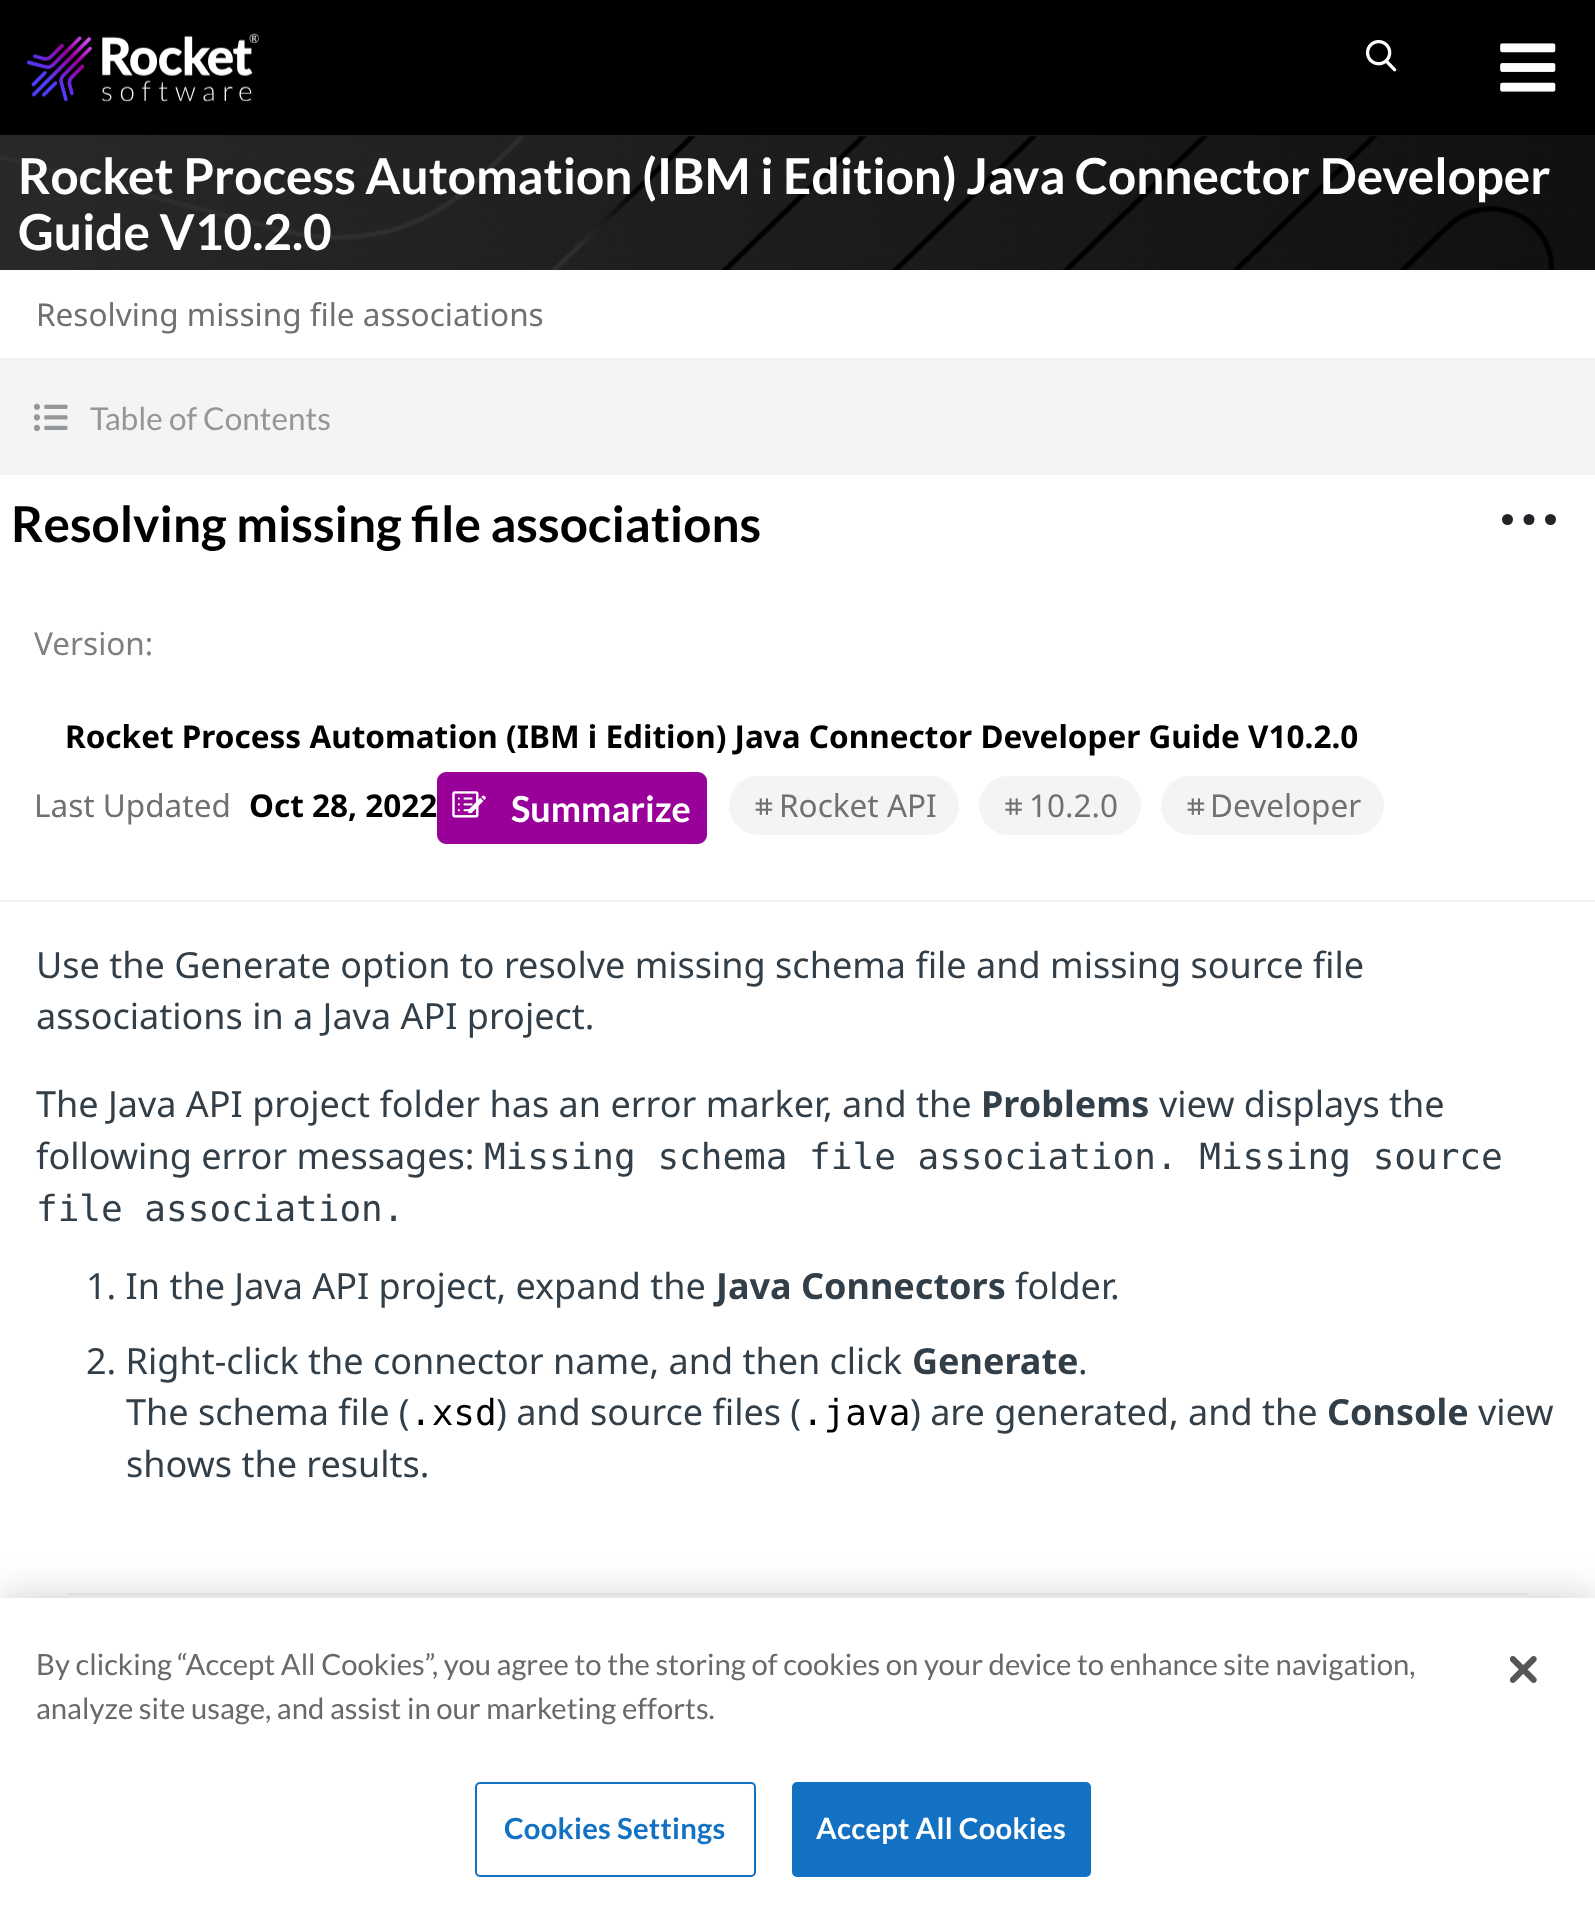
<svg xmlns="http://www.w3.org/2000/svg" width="1595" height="1911">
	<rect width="100%" height="100%" fill="#FFFFFF" />
	<rect x="0" y="0" width="1595" height="135" fill="#000000" />
	<image x="27" y="33" width="232" height="69" href="assets/img1.png" />
	<image x="1365" y="39" width="32" height="33" href="assets/img2.png" />
	<image x="1500" y="43" width="56" height="49" href="assets/img3.png" />
	<image x="0" y="135" width="1595" height="135" href="assets/img4.png" />
	<g font-family="Lato" font-size="49.5" font-weight="700" fill="#FFFFFF">
		<text x="18" y="194">Rocket Process Automation (IBM i Edition) Java Connector Developer</text>
		<text x="18" y="250">Guide V10.2.0</text>
	</g>
	<rect x="0" y="358" width="1595" height="2" fill="#F2F2F2" />
	<text x="36" y="326" font-family="Noto Sans" font-size="31.5" fill="#726F6F">Resolving missing file associations</text>
	<rect x="0" y="360" width="1595" height="115" fill="#F4F4F4" />
	<image x="34" y="403" width="34" height="28" href="assets/img5.png" />
	<text x="90" y="430" font-family="Lato" font-size="31.5" fill="#93979A">Table of Contents</text>
	<rect x="0" y="900" width="1595" height="2" fill="#F2F2F2" />
	<text x="11" y="542" font-family="Lato" font-size="49.5" font-weight="700" fill="#000000">Resolving missing file associations</text>
	<circle cx="1507.5" cy="519.5" r="5.5" fill="#212529" />
	<circle cx="1529" cy="519.5" r="5.5" fill="#212529" />
	<circle cx="1550.5" cy="519.5" r="5.5" fill="#212529" />
	<text x="34" y="655" font-family="Noto Sans" font-size="31.5" fill="#7F7F7F">Version:</text>
	<text x="65" y="748" font-family="Noto Sans" font-size="31.5" font-weight="700" fill="#000000">Rocket Process Automation (IBM i Edition) Java Connector Developer Guide V10.2.0</text>
	<text x="34" y="817" font-family="Noto Sans" font-size="31.5" fill="#726F6F">Last Updated</text>
	<text x="249" y="817" font-family="Noto Sans" font-size="31.5" font-weight="700" fill="#000000">Oct 28, 2022</text>
	<rect x="438" y="773" width="268" height="70" rx="8" fill="#990099" stroke="#990099" stroke-width="2" />
	<image x="452" y="791" width="34" height="27" href="assets/img6.png" />
	<text x="511" y="822" font-family="Lato" font-size="36" font-weight="700" fill="#FFFFFF">Summarize</text>
	<rect x="729" y="776" width="230" height="59" rx="29.5" fill="#F4F4F4" />
	<image x="755" y="798" width="18" height="17" href="assets/img7.png" />
	<text x="779" y="817" font-family="Noto Sans" font-size="31.5" fill="#726F6F">Rocket API</text>
	<rect x="979" y="776" width="162" height="59" rx="29.5" fill="#F4F4F4" />
	<image x="1005" y="798" width="17" height="17" href="assets/img8.png" />
	<text x="1029" y="817" font-family="Noto Sans" font-size="31.5" fill="#726F6F">10.2.0</text>
	<rect x="1161" y="776" width="223" height="59" rx="29.5" fill="#F4F4F4" />
	<image x="1187" y="798" width="18" height="17" href="assets/img7.png" />
	<text x="1210" y="817" font-family="Noto Sans" font-size="31.5" fill="#726F6F">Developer</text>
	<g font-family="Noto Sans" font-size="36" fill="#323E48">
		<text x="36" y="978">Use the Generate option to resolve missing schema file and missing source file</text>
		<text x="36" y="1029">associations in a Java API project.</text>
		<text x="36" y="1117">The Java API project folder has an error marker, and the</text>
	</g>
	<text x="981" y="1117" font-family="Noto Sans" font-size="36" font-weight="700" fill="#323E48">Problems</text>
	<g font-family="Noto Sans" font-size="36" fill="#323E48">
		<text x="1159" y="1117">view displays the</text>
		<text x="36" y="1169">following error messages:</text>
	</g>
	<g font-family="DejaVu Sans Mono" font-size="36" fill="#323E48">
		<text x="484" y="1169">Missing schema file association. Missing source</text>
		<text x="36" y="1221">file association.</text>
	</g>
	<text x="86" y="1299" font-family="Noto Sans" font-size="36" fill="#323E48">1. In the Java API project, expand the</text>
	<text x="716" y="1299" font-family="Noto Sans" font-size="36" font-weight="700" fill="#323E48">Java Connectors</text>
	<g font-family="Noto Sans" font-size="36" fill="#323E48">
		<text x="1015" y="1299">folder.</text>
		<text x="86" y="1374">2. Right-click the connector name, and then click</text>
	</g>
	<text x="912" y="1374" font-family="Noto Sans" font-size="36" font-weight="700" fill="#323E48">Generate</text>
	<g font-family="Noto Sans" font-size="36" fill="#323E48">
		<text x="1078" y="1374">.</text>
		<text x="126" y="1425">The schema file (</text>
	</g>
	<text x="410" y="1425" font-family="DejaVu Sans Mono" font-size="36" fill="#000000">.xsd</text>
	<text x="496" y="1425" font-family="Noto Sans" font-size="36" fill="#323E48">) and source files (</text>
	<text x="802" y="1425" font-family="DejaVu Sans Mono" font-size="36" fill="#000000">.java</text>
	<text x="910" y="1425" font-family="Noto Sans" font-size="36" fill="#323E48">) are generated, and the</text>
	<text x="1327" y="1425" font-family="Noto Sans" font-size="36" font-weight="700" fill="#323E48">Console</text>
	<g font-family="Noto Sans" font-size="36" fill="#323E48">
		<text x="1478" y="1425">view</text>
		<text x="126" y="1477">shows the results.</text>
	</g>
	<rect x="68" y="1593" width="1460" height="2" fill="#F2F2F2" />
	<rect x="0" y="1598" width="1595" height="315" fill="#000000" fill-opacity="0.2" filter="blur(20px)" />
	<rect x="0" y="1598" width="1595" height="313" fill="#FFFFFF" />
	<g font-family="Lato" font-size="29.25" fill="#696969">
		<text x="36" y="1675">By clicking “Accept All Cookies”, you agree to the storing of cookies on your device to enhance site navigation,</text>
		<text x="36" y="1719">analyze site usage, and assist in our marketing efforts.</text>
	</g>
	<rect x="476" y="1783" width="279" height="93" rx="4" fill="none" stroke="#1371C3" stroke-width="2" />
	<text x="504" y="1839" font-family="Lato" font-size="29.25" font-weight="700" letter-spacing="0.25" fill="#1371C3">Cookies Settings</text>
	<rect x="793" y="1783" width="297" height="93" rx="4" fill="#1371C3" stroke="#1371C3" stroke-width="2" />
	<text x="816" y="1839" font-family="Lato" font-size="29.25" font-weight="700" letter-spacing="0.25" fill="#FFFFFF">Accept All Cookies</text>
	<image x="1510" y="1656" width="27" height="27" href="assets/img9.png" />
</svg>
